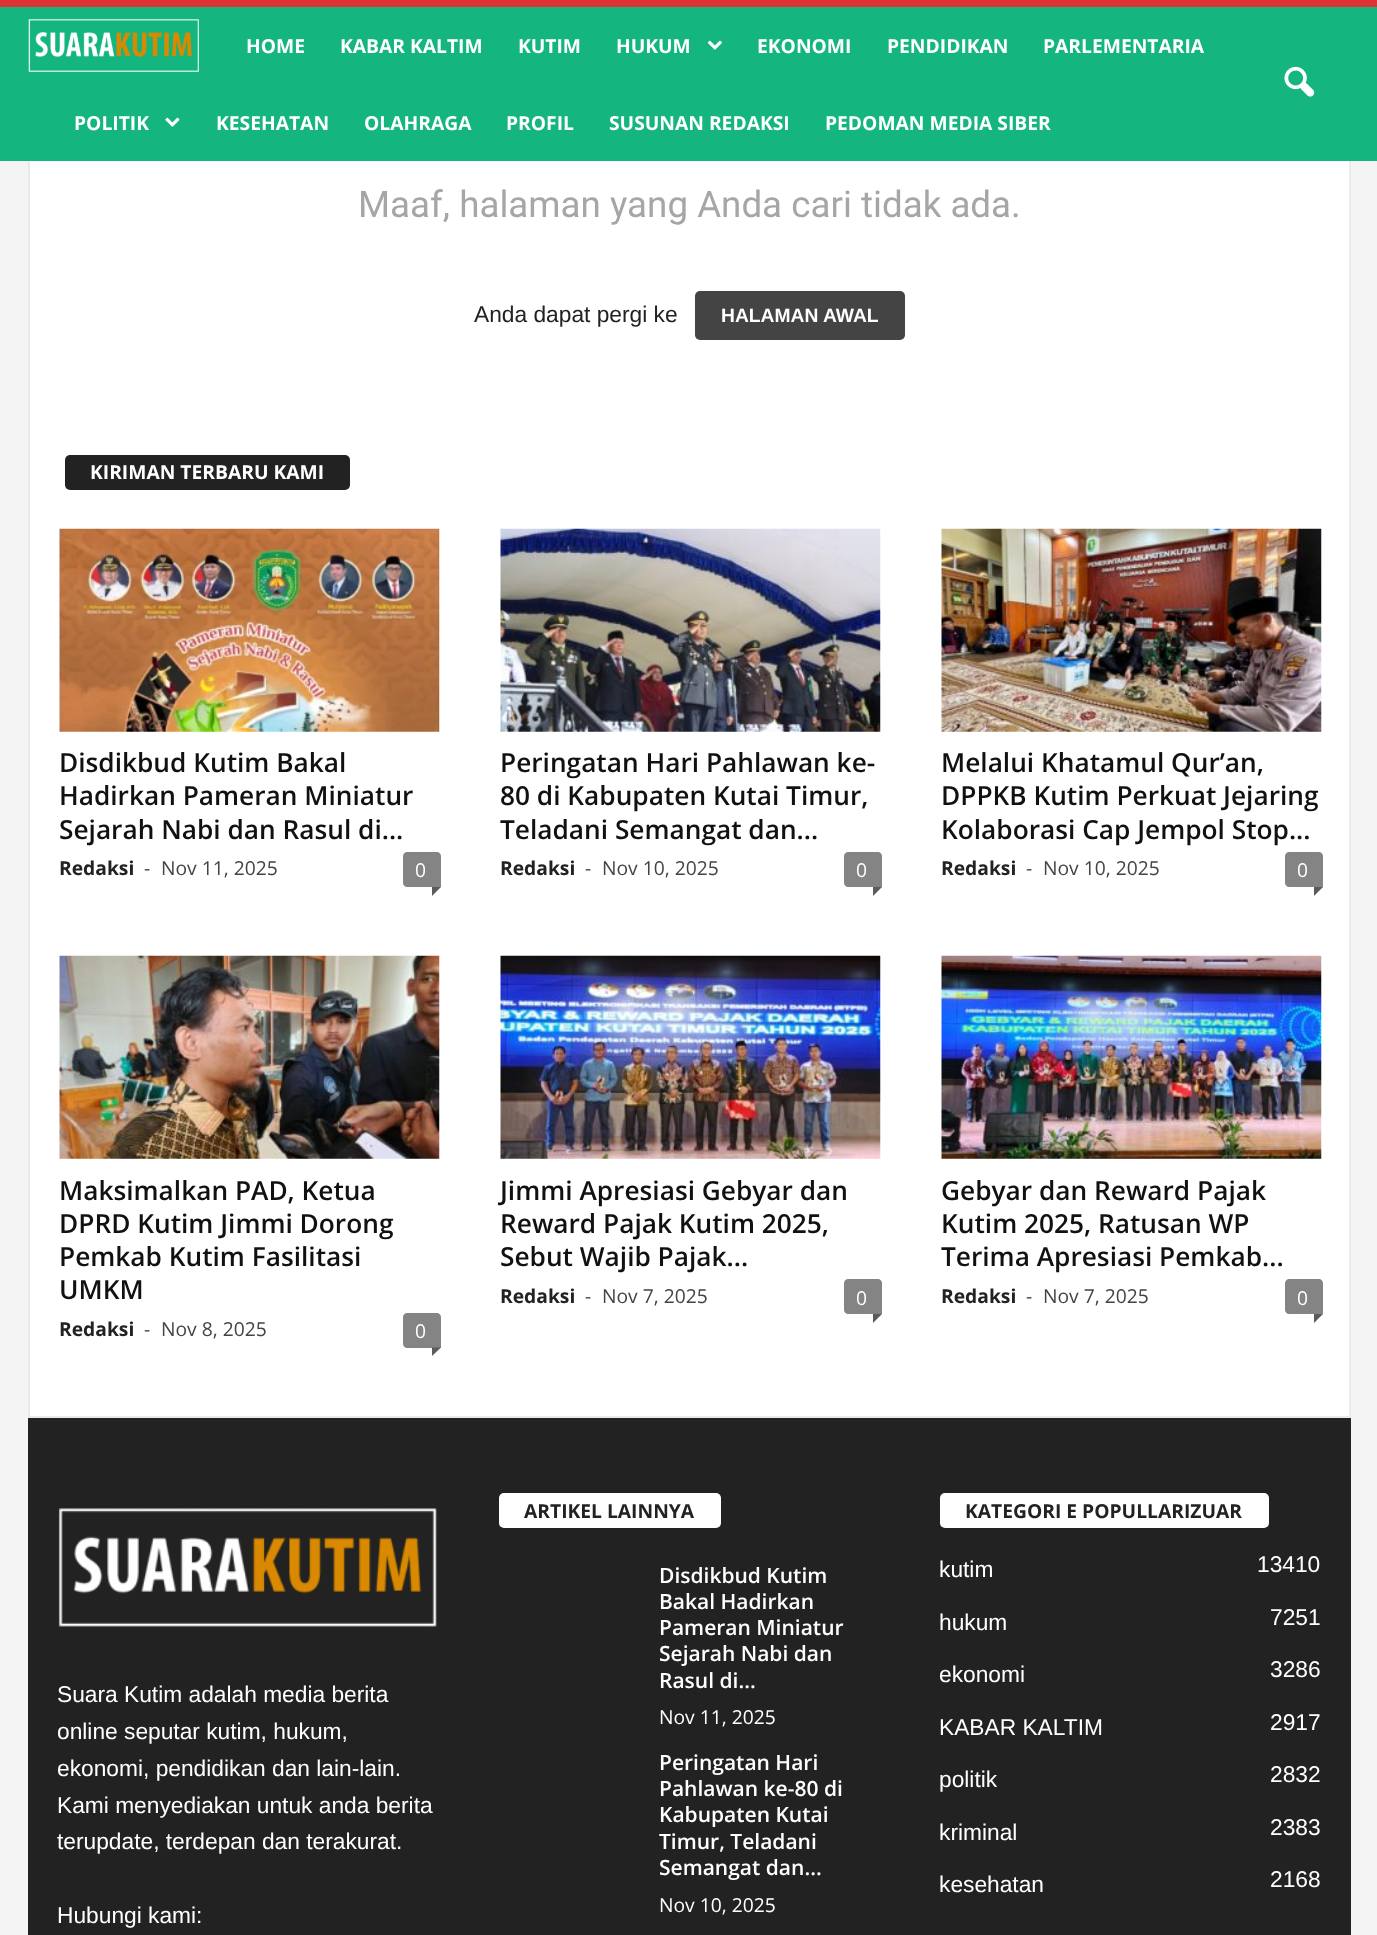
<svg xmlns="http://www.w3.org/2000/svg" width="1377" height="1935">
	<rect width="100%" height="100%" fill="#F4F4F4" />
	<rect x="0" y="7" width="1377" height="154" fill="#15B57F" />
	<rect x="0" y="0" width="1377" height="7" fill="#DD3333" />
	<image x="28" y="19" width="171" height="53" href="assets/img1.png" />
	<g font-family="Open Sans" font-size="19.25" font-weight="700" fill="#FFFFFF">
		<text x="246" y="53">HOME</text>
		<text x="340" y="53">KABAR KALTIM</text>
		<text x="518" y="53">KUTIM</text>
		<text x="616" y="53">HUKUM</text>
	</g>
	<image x="707" y="40" width="15" height="10" href="assets/img2.png" />
	<g font-family="Open Sans" font-size="19.25" font-weight="700" fill="#FFFFFF">
		<text x="757" y="53">EKONOMI</text>
		<text x="887" y="53">PENDIDIKAN</text>
		<text x="1043" y="53">PARLEMENTARIA</text>
		<text x="74" y="130">POLITIK</text>
	</g>
	<image x="165" y="117" width="15" height="10" href="assets/img3.png" />
	<g font-family="Open Sans" font-size="19.25" font-weight="700" fill="#FFFFFF">
		<text x="216" y="130">KESEHATAN</text>
		<text x="364" y="130">OLAHRAGA</text>
		<text x="506" y="130">PROFIL</text>
		<text x="609" y="130">SUSUNAN REDAKSI</text>
		<text x="825" y="130">PEDOMAN MEDIA SIBER</text>
	</g>
	<image x="1284" y="66" width="31" height="31" href="assets/img4.png" />
	<rect x="30" y="161" width="1319" height="1255" fill="#FFFFFF" />
	<rect x="28" y="1416" width="1323" height="2" fill="#EAEAEA" />
	<rect x="28" y="161" width="2" height="1255" fill="#EAEAEA" />
	<text x="358" y="217" font-family="Roboto" font-size="36.75" fill="#A6A6A6">Maaf, halaman yang Anda cari tidak ada.</text>
	<text x="474" y="322" font-family="Liberation Sans" font-size="22.75" fill="#222222">Anda dapat pergi ke</text>
	<rect x="695" y="291" width="210" height="49" rx="5" fill="#444444" />
	<text x="721" y="322" font-family="Liberation Sans" font-size="19.25" font-weight="700" fill="#FFFFFF">HALAMAN AWAL</text>
	<rect x="65" y="455" width="285" height="35" rx="5" fill="#222222" />
	<text x="90" y="479" font-family="Open Sans" font-size="19.25" font-weight="700" fill="#FFFFFF">KIRIMAN TERBARU KAMI</text>
	<image x="59" y="528" width="381" height="204" href="assets/img5.png" />
	<g font-family="Open Sans" font-size="26.25" font-weight="600" fill="#111111">
		<text x="59" y="772">Disdikbud Kutim Bakal</text>
		<text x="59" y="805">Hadirkan Pameran Miniatur</text>
		<text x="59" y="839">Sejarah Nabi dan Rasul di...</text>
	</g>
	<text x="59" y="875" font-family="Open Sans" font-size="19.25" font-weight="700" fill="#222222">Redaksi</text>
	<g font-family="Open Sans" font-size="19.25" fill="#444444">
		<text x="144" y="875">-</text>
		<text x="161" y="875">Nov 11, 2025</text>
	</g>
	<path d="M407 852H437C439 852 441 854 441 856V887H407C405 887 403 885 403 883V856C403 854 405 852 407 852Z" fill="#848484" />
	<text x="415" y="877" font-family="Open Sans" font-size="19.25" fill="#FFFFFF">0</text>
	<path d="M432 887H441L432 896Z" fill="#5B5B5B" />
	<image x="500" y="528" width="381" height="204" href="assets/img6.png" />
	<g font-family="Open Sans" font-size="26.25" font-weight="600" fill="#111111">
		<text x="500" y="772">Peringatan Hari Pahlawan ke-</text>
		<text x="500" y="805">80 di Kabupaten Kutai Timur,</text>
		<text x="500" y="839">Teladani Semangat dan...</text>
	</g>
	<text x="500" y="875" font-family="Open Sans" font-size="19.25" font-weight="700" fill="#222222">Redaksi</text>
	<g font-family="Open Sans" font-size="19.25" fill="#444444">
		<text x="585" y="875">-</text>
		<text x="602" y="875">Nov 10, 2025</text>
	</g>
	<path d="M848 852H878C880 852 882 854 882 856V887H848C846 887 844 885 844 883V856C844 854 846 852 848 852Z" fill="#848484" />
	<text x="856" y="877" font-family="Open Sans" font-size="19.25" fill="#FFFFFF">0</text>
	<path d="M873 887H882L873 896Z" fill="#5B5B5B" />
	<image x="941" y="528" width="381" height="204" href="assets/img7.png" />
	<g font-family="Open Sans" font-size="26.25" font-weight="600" fill="#111111">
		<text x="941" y="772">Melalui Khatamul Qur’an,</text>
		<text x="941" y="805">DPPKB Kutim Perkuat Jejaring</text>
		<text x="941" y="839">Kolaborasi Cap Jempol Stop...</text>
	</g>
	<text x="941" y="875" font-family="Open Sans" font-size="19.25" font-weight="700" fill="#222222">Redaksi</text>
	<g font-family="Open Sans" font-size="19.25" fill="#444444">
		<text x="1026" y="875">-</text>
		<text x="1043" y="875">Nov 10, 2025</text>
	</g>
	<path d="M1289 852H1319C1321 852 1323 854 1323 856V887H1289C1287 887 1285 885 1285 883V856C1285 854 1287 852 1289 852Z" fill="#848484" />
	<text x="1297" y="877" font-family="Open Sans" font-size="19.25" fill="#FFFFFF">0</text>
	<path d="M1314 887H1323L1314 896Z" fill="#5B5B5B" />
	<image x="59" y="955" width="381" height="204" href="assets/img8.png" />
	<g font-family="Open Sans" font-size="26.25" font-weight="600" fill="#111111">
		<text x="59" y="1200">Maksimalkan PAD, Ketua</text>
		<text x="59" y="1233">DPRD Kutim Jimmi Dorong</text>
		<text x="59" y="1266">Pemkab Kutim Fasilitasi</text>
		<text x="59" y="1299">UMKM</text>
	</g>
	<text x="59" y="1336" font-family="Open Sans" font-size="19.25" font-weight="700" fill="#222222">Redaksi</text>
	<g font-family="Open Sans" font-size="19.25" fill="#444444">
		<text x="144" y="1336">-</text>
		<text x="161" y="1336">Nov 8, 2025</text>
	</g>
	<path d="M407 1313H437C439 1313 441 1315 441 1317V1348H407C405 1348 403 1346 403 1344V1317C403 1315 405 1313 407 1313Z" fill="#848484" />
	<text x="415" y="1338" font-family="Open Sans" font-size="19.25" fill="#FFFFFF">0</text>
	<path d="M432 1347.5H441L432 1356Z" fill="#5B5B5B" />
	<image x="500" y="955" width="381" height="204" href="assets/img9.png" />
	<g font-family="Open Sans" font-size="26.25" font-weight="600" fill="#111111">
		<text x="500" y="1200">Jimmi Apresiasi Gebyar dan</text>
		<text x="500" y="1233">Reward Pajak Kutim 2025,</text>
		<text x="500" y="1266">Sebut Wajib Pajak...</text>
	</g>
	<text x="500" y="1303" font-family="Open Sans" font-size="19.25" font-weight="700" fill="#222222">Redaksi</text>
	<g font-family="Open Sans" font-size="19.25" fill="#444444">
		<text x="585" y="1303">-</text>
		<text x="602" y="1303">Nov 7, 2025</text>
	</g>
	<path d="M848 1279H878C880 1279 882 1281 882 1283V1314H848C846 1314 844 1312 844 1310V1283C844 1281 846 1279 848 1279Z" fill="#848484" />
	<text x="856" y="1305" font-family="Open Sans" font-size="19.25" fill="#FFFFFF">0</text>
	<path d="M873 1314H882L873 1323Z" fill="#5B5B5B" />
	<image x="941" y="955" width="381" height="204" href="assets/img10.png" />
	<g font-family="Open Sans" font-size="26.25" font-weight="600" fill="#111111">
		<text x="941" y="1200">Gebyar dan Reward Pajak</text>
		<text x="941" y="1233">Kutim 2025, Ratusan WP</text>
		<text x="941" y="1266">Terima Apresiasi Pemkab...</text>
	</g>
	<text x="941" y="1303" font-family="Open Sans" font-size="19.25" font-weight="700" fill="#222222">Redaksi</text>
	<g font-family="Open Sans" font-size="19.25" fill="#444444">
		<text x="1026" y="1303">-</text>
		<text x="1043" y="1303">Nov 7, 2025</text>
	</g>
	<path d="M1289 1279H1319C1321 1279 1323 1281 1323 1283V1314H1289C1287 1314 1285 1312 1285 1310V1283C1285 1281 1287 1279 1289 1279Z" fill="#848484" />
	<text x="1297" y="1305" font-family="Open Sans" font-size="19.25" fill="#FFFFFF">0</text>
	<path d="M1314 1314H1323L1314 1323Z" fill="#5B5B5B" />
	<rect x="1349" y="161" width="2" height="1255" fill="#EAEAEA" />
	<rect x="28" y="1418" width="1323" height="517" fill="#222222" />
	<image x="58" y="1508" width="379" height="119" href="assets/img11.png" />
	<g font-family="Liberation Sans" font-size="22.75" fill="#FFFFFF">
		<text x="57" y="1702">Suara Kutim adalah media berita</text>
		<text x="57" y="1739">online seputar kutim, hukum,</text>
		<text x="57" y="1776">ekonomi, pendidikan dan lain-lain.</text>
		<text x="57" y="1813">Kami menyediakan untuk anda berita</text>
		<text x="57" y="1849">terupdate, terdepan dan terakurat.</text>
		<text x="57" y="1923">Hubungi kami:</text>
	</g>
	<rect x="499" y="1493" width="222" height="35" rx="5" fill="#FFFFFF" />
	<text x="524" y="1518" font-family="Open Sans" font-size="19.25" font-weight="700" fill="#222222">ARTIKEL LAINNYA</text>
	<g font-family="Open Sans" font-size="21" font-weight="600" fill="#FFFFFF">
		<text x="659" y="1583">Disdikbud Kutim</text>
		<text x="659" y="1609">Bakal Hadirkan</text>
		<text x="659" y="1635">Pameran Miniatur</text>
		<text x="659" y="1661">Sejarah Nabi dan</text>
		<text x="659" y="1688">Rasul di...</text>
	</g>
	<text x="659" y="1724" font-family="Open Sans" font-size="19.25" fill="#FFFFFF">Nov 11, 2025</text>
	<g font-family="Open Sans" font-size="21" font-weight="600" fill="#FFFFFF">
		<text x="659" y="1770">Peringatan Hari</text>
		<text x="659" y="1796">Pahlawan ke-80 di</text>
		<text x="659" y="1822">Kabupaten Kutai</text>
		<text x="659" y="1849">Timur, Teladani</text>
		<text x="659" y="1875">Semangat dan...</text>
	</g>
	<text x="659" y="1912" font-family="Open Sans" font-size="19.25" fill="#FFFFFF">Nov 10, 2025</text>
	<rect x="940" y="1493" width="329" height="35" rx="5" fill="#FFFFFF" />
	<text x="965" y="1518" font-family="Open Sans" font-size="19.25" font-weight="700" fill="#222222">KATEGORI E POPULLARIZUAR</text>
	<g font-family="Liberation Sans" font-size="22.75" fill="#FFFFFF">
		<text x="939" y="1577">kutim</text>
		<text x="1257" y="1572">13410</text>
		<text x="939" y="1630">hukum</text>
		<text x="1270" y="1625">7251</text>
		<text x="939" y="1682">ekonomi</text>
		<text x="1270" y="1677">3286</text>
		<text x="939" y="1735">KABAR KALTIM</text>
		<text x="1270" y="1730">2917</text>
		<text x="939" y="1787">politik</text>
		<text x="1270" y="1782">2832</text>
		<text x="939" y="1840">kriminal</text>
		<text x="1270" y="1835">2383</text>
		<text x="939" y="1892">kesehatan</text>
		<text x="1270" y="1887">2168</text>
	</g>
</svg>
